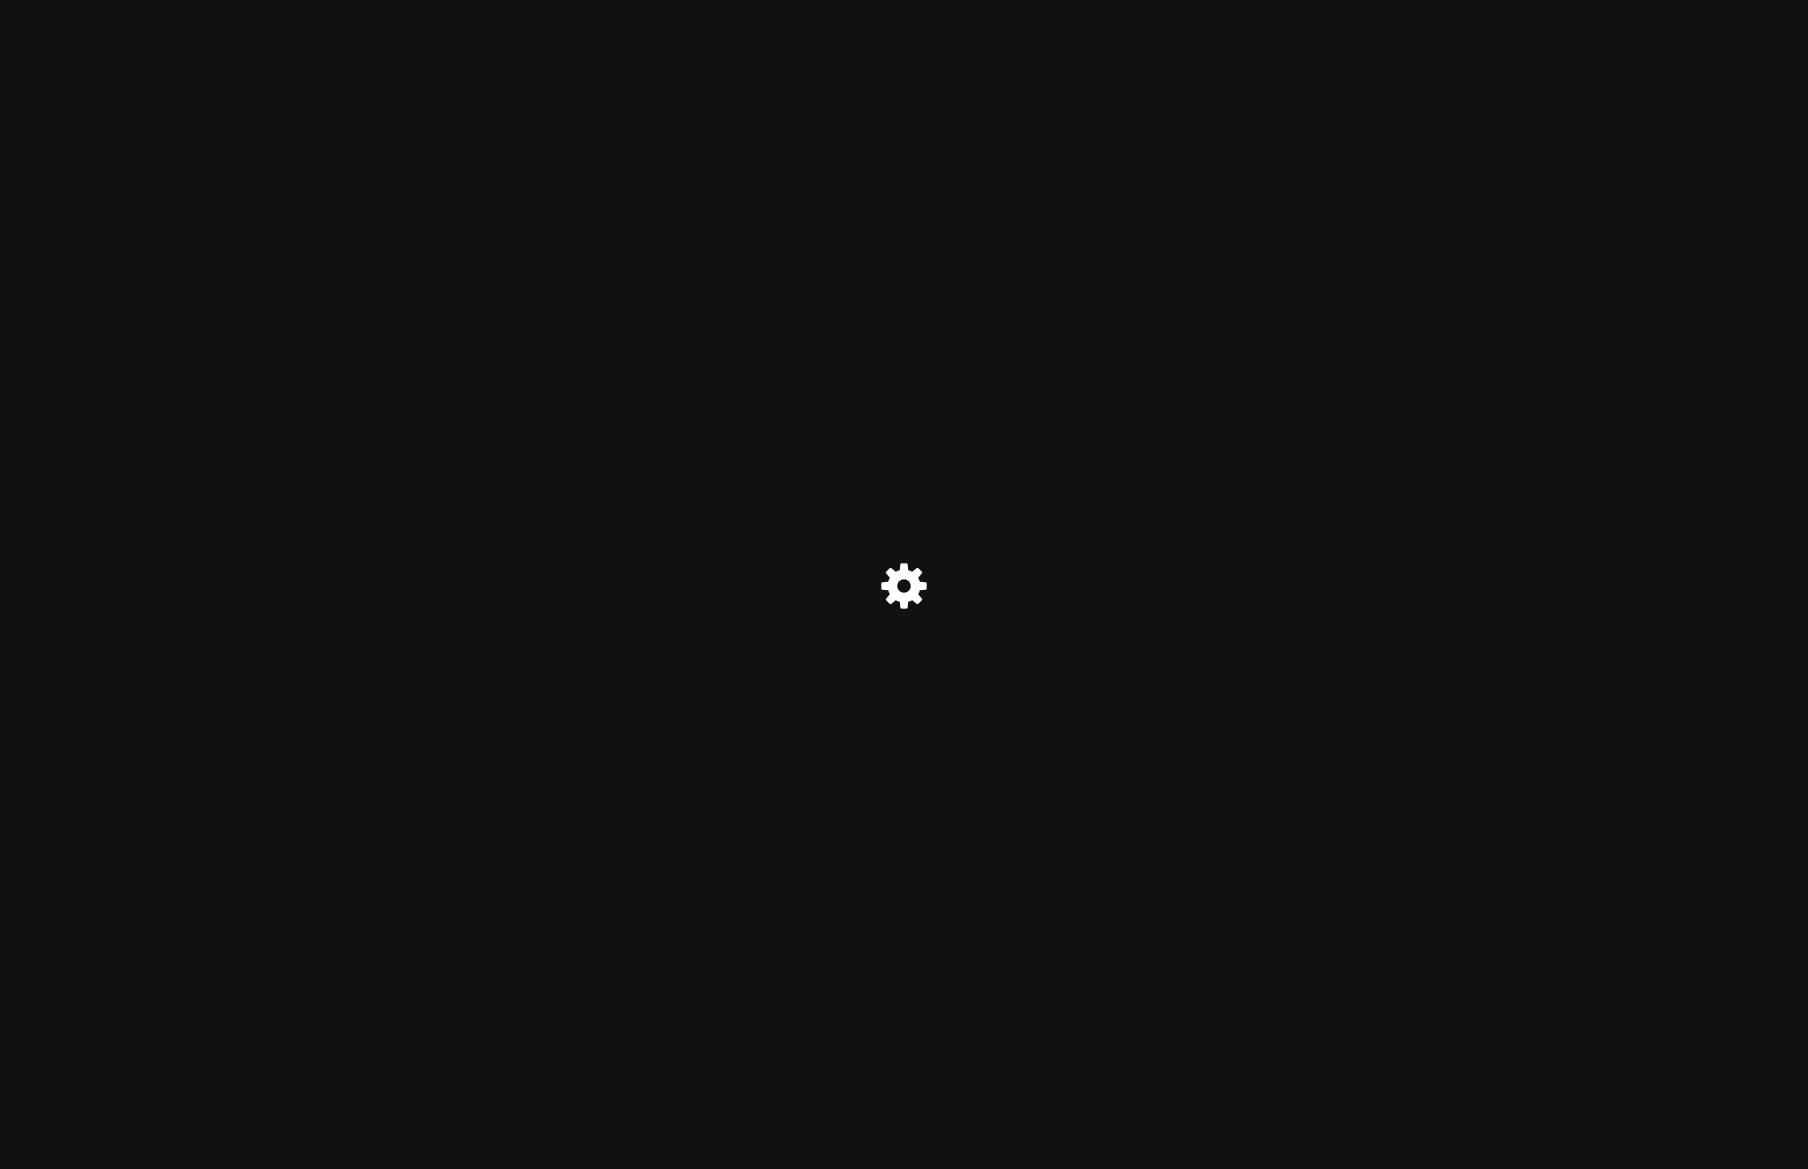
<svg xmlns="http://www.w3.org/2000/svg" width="1808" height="1169">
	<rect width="100%" height="100%" fill="#111111" />
	<image x="881" y="563" width="46" height="46" href="assets/img1.png" />
</svg>
